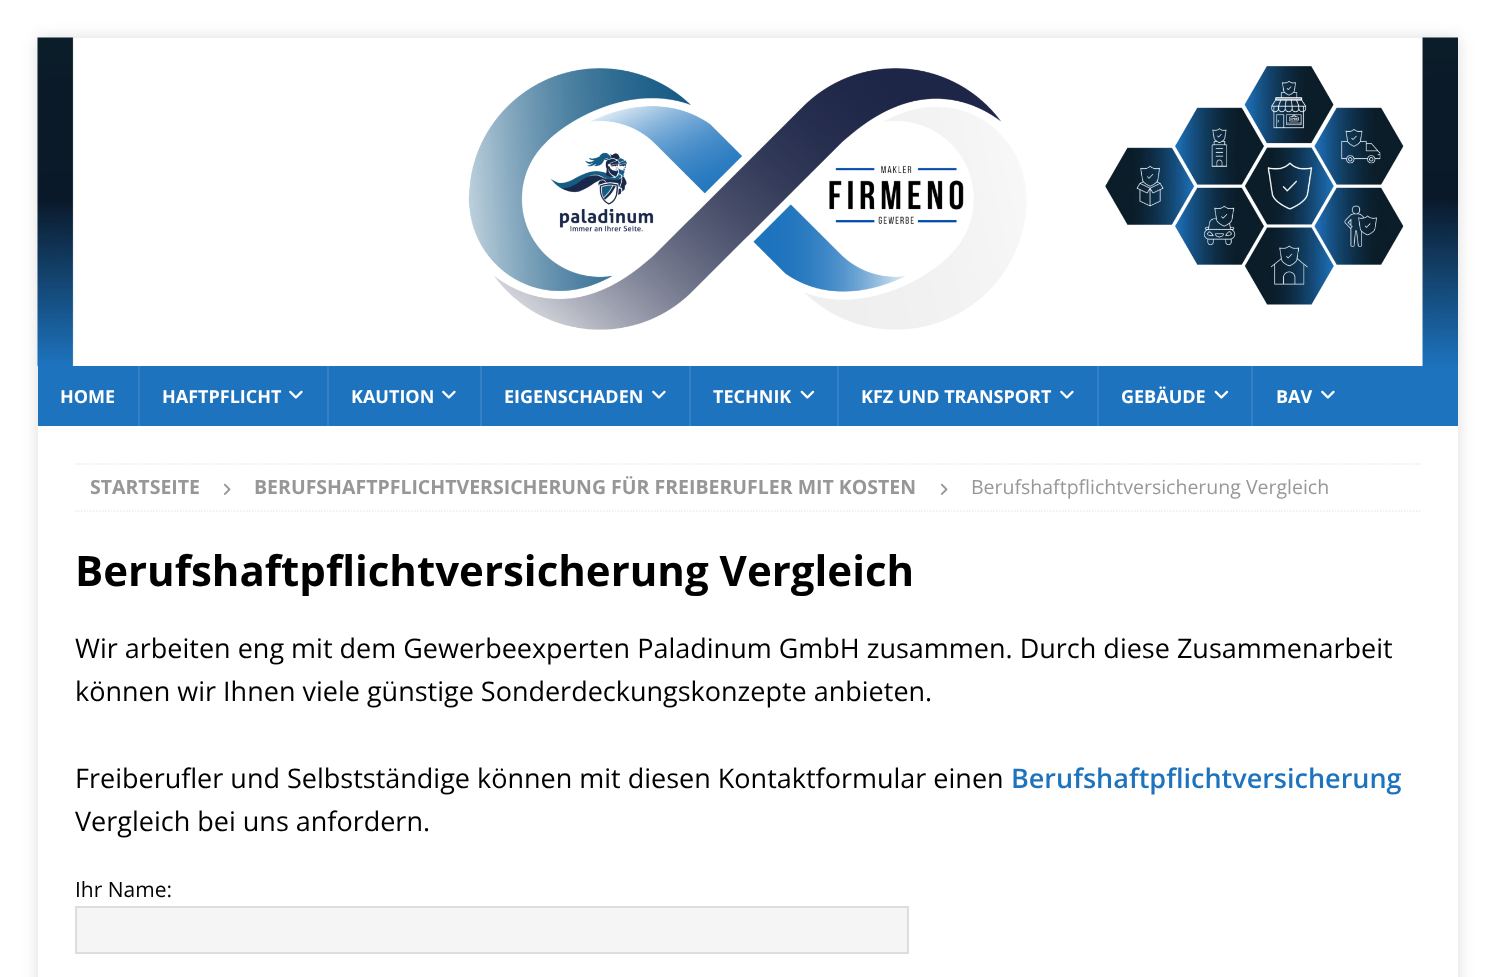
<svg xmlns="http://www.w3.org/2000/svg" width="1495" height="977">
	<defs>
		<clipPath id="clip1"><path d="M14 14H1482V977H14ZM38 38H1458V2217H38Z" clip-rule="evenodd" /></clipPath>
	</defs>
	<rect width="100%" height="100%" fill="#FFFFFF" />
	<g clip-path="url(#clip1)">
		<rect x="38" y="38" width="1420" height="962" fill="#323232" fill-opacity="0.17" filter="blur(7.5px)" />
	</g>
	<image x="37" y="37" width="1421" height="329" href="assets/img1.png" />
	<rect x="38" y="366" width="1420" height="60" fill="#1E73BE" />
	<text x="60" y="403" font-family="Open Sans" font-size="18" font-weight="700" fill="#FFFFFF">HOME</text>
	<rect x="138" y="366" width="2" height="60" fill="#3581C5" />
	<text x="162" y="403" font-family="Open Sans" font-size="18" font-weight="700" fill="#FFFFFF">HAFTPFLICHT</text>
	<image x="289" y="390" width="14" height="9" href="assets/img2.png" />
	<rect x="327" y="366" width="2" height="60" fill="#3581C5" />
	<text x="351" y="403" font-family="Open Sans" font-size="18" font-weight="700" fill="#FFFFFF">KAUTION</text>
	<image x="442" y="390" width="14" height="9" href="assets/img2.png" />
	<rect x="480" y="366" width="2" height="60" fill="#3581C5" />
	<text x="504" y="403" font-family="Open Sans" font-size="18" font-weight="700" fill="#FFFFFF">EIGENSCHADEN</text>
	<image x="652" y="390" width="14" height="9" href="assets/img2.png" />
	<rect x="689" y="366" width="2" height="60" fill="#3581C5" />
	<text x="713" y="403" font-family="Open Sans" font-size="18" font-weight="700" fill="#FFFFFF">TECHNIK</text>
	<image x="800" y="390" width="15" height="9" href="assets/img3.png" />
	<rect x="837" y="366" width="2" height="60" fill="#3581C5" />
	<text x="861" y="403" font-family="Open Sans" font-size="18" font-weight="700" fill="#FFFFFF">KFZ UND TRANSPORT</text>
	<image x="1060" y="390" width="14" height="9" href="assets/img2.png" />
	<rect x="1097" y="366" width="2" height="60" fill="#3581C5" />
	<text x="1121" y="403" font-family="Open Sans" font-size="18" font-weight="700" fill="#FFFFFF">GEBÄUDE</text>
	<image x="1214" y="390" width="15" height="9" href="assets/img3.png" />
	<rect x="1251" y="366" width="2" height="60" fill="#3581C5" />
	<text x="1276" y="403" font-family="Open Sans" font-size="18" font-weight="700" fill="#FFFFFF">BAV</text>
	<image x="1321" y="390" width="14" height="9" href="assets/img2.png" />
	<path d="M75 464H1420.5" fill="none" stroke="#EBEBEB" stroke-width="1.5" stroke-dasharray="1.5 1.5" />
	<path d="M75 511H1420.5" fill="none" stroke="#EBEBEB" stroke-width="1.5" stroke-dasharray="1.5 1.5" />
	<text x="90" y="494" font-family="Open Sans" font-size="19.5" font-weight="700" fill="#979797">STARTSEITE</text>
	<image x="223" y="483" width="8" height="12" href="assets/img4.png" />
	<text x="254" y="494" font-family="Open Sans" font-size="19.5" font-weight="700" fill="#979797">BERUFSHAFTPFLICHTVERSICHERUNG FÜR FREIBERUFLER MIT KOSTEN</text>
	<image x="940" y="483" width="8" height="12" href="assets/img4.png" />
	<text x="971" y="494" font-family="Open Sans" font-size="19.5" fill="#979797">Berufshaftpflichtversicherung Vergleich</text>
	<text x="75" y="586" font-family="Open Sans" font-size="42" font-weight="700" fill="#000000">Berufshaftpflichtversicherung Vergleich</text>
	<g font-family="Open Sans" font-size="27" fill="#000000">
		<text x="75" y="658">Wir arbeiten eng mit dem Gewerbeexperten Paladinum GmbH zusammen. Durch diese Zusammenarbeit</text>
		<text x="75" y="701">können wir Ihnen viele günstige Sonderdeckungskonzepte anbieten.</text>
		<text x="75" y="788">Freiberufler und Selbstständige können mit diesen Kontaktformular einen</text>
	</g>
	<text x="1011" y="788" font-family="Open Sans" font-size="27" font-weight="600" fill="#1E73BE">Berufshaftpflichtversicherung</text>
	<text x="75" y="831" font-family="Open Sans" font-size="27" fill="#000000">Vergleich bei uns anfordern.</text>
	<text x="75" y="897" font-family="Open Sans" font-size="21" fill="#000000">Ihr Name:</text>
	<rect x="76" y="907" width="832" height="46" fill="#F5F5F5" stroke="#DDDDDD" stroke-width="2" />
</svg>
